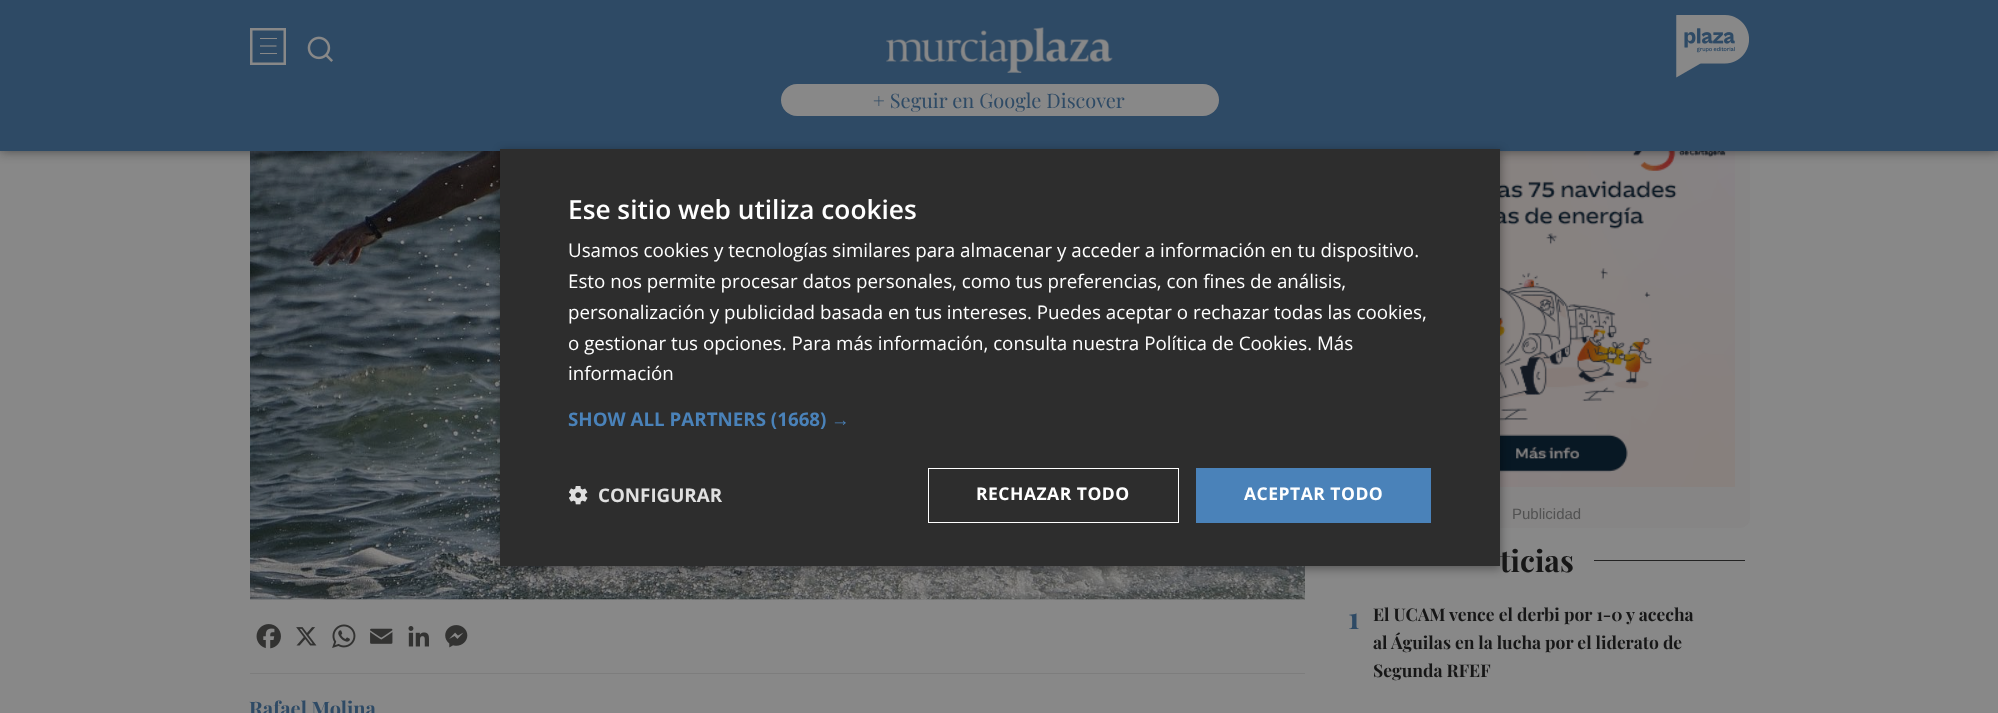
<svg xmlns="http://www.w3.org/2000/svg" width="1998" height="713">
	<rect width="100%" height="100%" fill="#888888" />
	<rect x="250" y="599" width="1055" height="1" fill="#818181" />
	<image x="250" y="151" width="1055" height="449" href="assets/img5.png" />
	<rect x="1345" y="98" width="405" height="430" rx="10" fill="#868585" />
	<image x="1500" y="151" width="235" height="336" href="assets/img6.png" />
	<rect x="0" y="0" width="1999" height="151" fill="#090909" fill-opacity="0.5" filter="blur(6px)" />
	<rect x="0" y="0" width="1998" height="151" fill="#2E4A65" />
	<rect x="251.25" y="29.25" width="33.5" height="34.5" fill="none" stroke="#888888" stroke-width="2.5" />
	<rect x="260" y="38" width="17" height="1" fill="#888888" />
	<path d="M260 46H276.5" fill="none" stroke="#888888" stroke-width="1.2" />
	<rect x="260" y="53" width="17" height="1" fill="#888888" />
	<image x="307" y="36" width="26" height="26" href="assets/img1.png" />
	<image x="886" y="27" width="227" height="46" href="assets/img2.png" />
	<image x="1676" y="15" width="73" height="63" href="assets/img3.png" />
	<rect x="781" y="84" width="438" height="32" rx="16" fill="#888888" />
	<text x="873" y="108" font-family="Playfair Display" font-size="20" fill="#2E4A65">+ Seguir en Google Discover</text>
	<rect x="501" y="151" width="1000" height="418" fill="#000000" fill-opacity="0.35" filter="blur(5px)" />
	<text x="1500" y="572" font-family="Playfair Display" font-size="30" font-weight="700" fill="#171717">ticias</text>
	<rect x="500" y="149" width="1000" height="417" fill="#2D2D2D" />
	<text x="568" y="219" font-family="Open Sans" font-size="26.25" font-weight="600" fill="#FFFFFF">Ese sitio web utiliza cookies</text>
	<g font-family="Open Sans" font-size="18.75" fill="#FFFFFF">
		<text x="568" y="257">Usamos cookies y tecnologías similares para almacenar y acceder a información en tu dispositivo.</text>
		<text x="568" y="288">Esto nos permite procesar datos personales, como tus preferencias, con fines de análisis,</text>
		<text x="568" y="319">personalización y publicidad basada en tus intereses. Puedes aceptar o rechazar todas las cookies,</text>
		<text x="568" y="350">o gestionar tus opciones. Para más información, consulta nuestra Política de Cookies. Más</text>
		<text x="568" y="380">información</text>
	</g>
	<text x="568" y="426" font-family="Open Sans" font-size="18.75" font-weight="700" fill="#4A82B9">SHOW ALL PARTNERS (1668)</text>
	<text x="831" y="426" font-family="Liberation Sans" font-size="18.75" font-weight="700" fill="#4A82B9">→</text>
	<image x="569" y="486" width="19" height="19" href="assets/img4.png" />
	<text x="598" y="502" font-family="Open Sans" font-size="18.75" font-weight="700" fill="#E0E0E0">CONFIGURAR</text>
	<rect x="928.5" y="468.5" width="250" height="54" fill="none" stroke="#FFFFFF" />
	<text x="976" y="500" font-family="Open Sans" font-size="17.5" font-weight="700" letter-spacing="0.5" fill="#FFFFFF">RECHAZAR TODO</text>
	<rect x="1196" y="468" width="235" height="55" fill="#4A82B9" />
	<text x="1244" y="500" font-family="Open Sans" font-size="17.5" font-weight="700" letter-spacing="0.5" fill="#FFFFFF">ACEPTAR TODO</text>
	<text x="1512" y="519" font-family="Liberation Sans" font-size="15" fill="#525252">Publicidad</text>
	<rect x="1594" y="560" width="151" height="1" fill="#232323" />
	<text x="1348" y="629" font-family="Playfair Display" font-size="30" font-weight="700" fill="#2E4A65">1</text>
	<g font-family="Playfair Display" font-size="17.5" font-weight="700" fill="#171717">
		<text x="1373" y="621">El UCAM vence el derbi por 1-0 y acecha</text>
		<text x="1373" y="649">al Águilas en la lucha por el liderato de</text>
		<text x="1373" y="677">Segunda RFEF</text>
	</g>
	<rect x="250" y="673" width="1055" height="1" fill="#7D7D7D" />
	<image x="256" y="624" width="25" height="25" href="assets/img7.png" />
	<image x="296" y="627" width="21" height="19" href="assets/img8.png" />
	<image x="332" y="624" width="24" height="24" href="assets/img9.png" />
	<image x="370" y="628" width="23" height="16" href="assets/img10.png" />
	<image x="408" y="626" width="21" height="21" href="assets/img11.png" />
	<image x="445" y="625" width="23" height="23" href="assets/img12.png" />
	<text x="249" y="716" font-family="Playfair Display" font-size="20" font-weight="700" fill="#2E4A65">Rafael Molina</text>
</svg>
